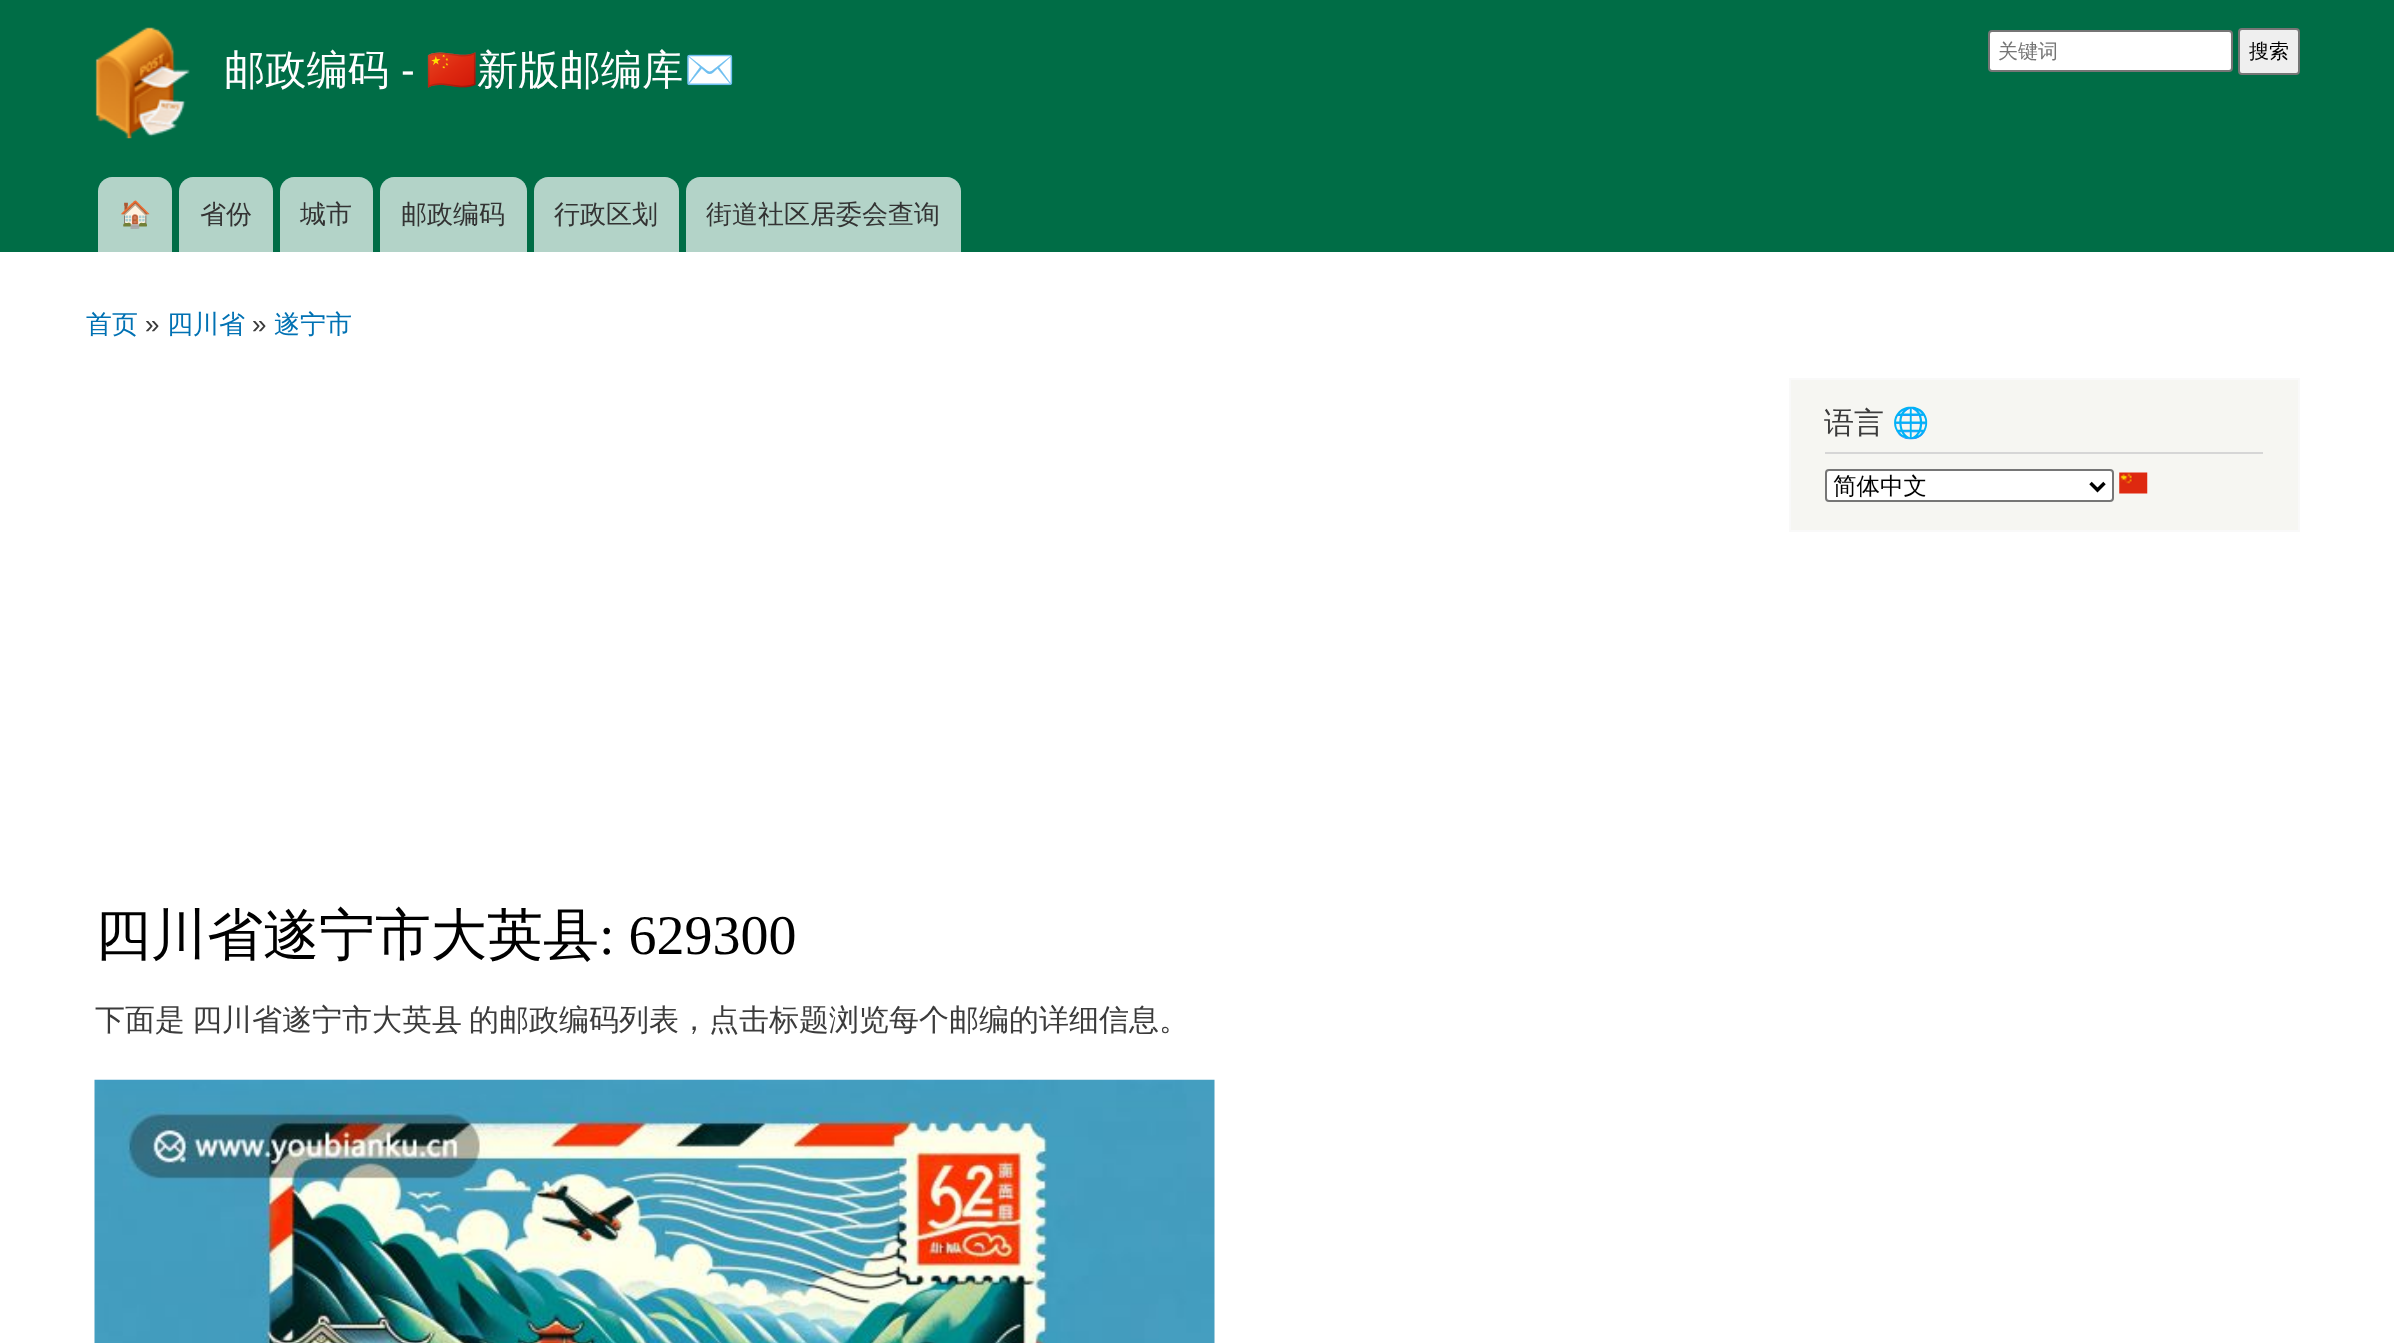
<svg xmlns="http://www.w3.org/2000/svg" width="2394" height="1343">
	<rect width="100%" height="100%" fill="#FFFFFF" />
	<rect x="0" y="0" width="2394" height="252" fill="#006D46" />
	<image x="95" y="27" width="95" height="112" href="assets/img1.png" />
	<text x="224" y="84" font-family="WenQuanYi Zen Hei" font-size="41.25" font-weight="500" fill="#FFFEFF">邮政编码</text>
	<text x="401" y="84" font-family="Liberation Sans" font-size="41.25" fill="#FFFEFF">-</text>
	<text x="426" y="84" font-family="Noto Color Emoji" font-size="41.25" fill="#FFFEFF">🇨🇳</text>
	<text x="477" y="84" font-family="WenQuanYi Zen Hei" font-size="41.25" font-weight="500" fill="#FFFEFF">新版邮编库</text>
	<text x="684" y="84" font-family="Noto Color Emoji" font-size="41.25" fill="#FFFEFF">✉️</text>
	<rect x="1989" y="31" width="243" height="40" rx="3" fill="#FFFFFF" stroke="#767676" stroke-width="2" />
	<text x="1998" y="58" font-family="WenQuanYi Zen Hei" font-size="20" font-weight="500" fill="#757575">关键词</text>
	<rect x="2239" y="29" width="60" height="45" rx="3" fill="#EFEFEF" stroke="#767676" stroke-width="2" />
	<text x="2249" y="58" font-family="WenQuanYi Zen Hei" font-size="20" font-weight="500" fill="#000000">搜索</text>
	<path d="M112 177H158C165.5 177 172 183.5 172 191V252H98V191C98 183.5 104.5 177 112 177Z" fill="#B3D3C8" />
	<text x="119" y="223" font-family="Noto Color Emoji" font-size="26" fill="#333333">🏠</text>
	<path d="M193 177H259C266.5 177 273 183.5 273 191V252H179V191C179 183.5 185.5 177 193 177Z" fill="#B3D3C8" />
	<text x="200" y="223" font-family="WenQuanYi Zen Hei" font-size="26" font-weight="500" fill="#333333">省份</text>
	<path d="M294 177H359C366.5 177 373 183.5 373 191V252H280V191C280 183.5 286.5 177 294 177Z" fill="#B3D3C8" />
	<text x="300" y="223" font-family="WenQuanYi Zen Hei" font-size="26" font-weight="500" fill="#333333">城市</text>
	<path d="M394 177H513C520.5 177 527 183.5 527 191V252H380V191C380 183.5 386.5 177 394 177Z" fill="#B3D3C8" />
	<text x="401" y="223" font-family="WenQuanYi Zen Hei" font-size="26" font-weight="500" fill="#333333">邮政编码</text>
	<path d="M548 177H665C672.5 177 679 183.5 679 191V252H534V191C534 183.5 540.5 177 548 177Z" fill="#B3D3C8" />
	<text x="554" y="223" font-family="WenQuanYi Zen Hei" font-size="26" font-weight="500" fill="#333333">行政区划</text>
	<path d="M700 177H947C954.5 177 961 183.5 961 191V252H686V191C686 183.5 692.5 177 700 177Z" fill="#B3D3C8" />
	<text x="706" y="223" font-family="WenQuanYi Zen Hei" font-size="26" font-weight="500" fill="#333333">街道社区居委会查询</text>
	<text x="86" y="333" font-family="WenQuanYi Zen Hei" font-size="26" font-weight="500" fill="#0071B3">首页</text>
	<text x="145" y="333" font-family="Liberation Sans" font-size="26" fill="#3B3B3B">»</text>
	<text x="167" y="333" font-family="WenQuanYi Zen Hei" font-size="26" font-weight="500" fill="#0071B3">四川省</text>
	<text x="252" y="333" font-family="Liberation Sans" font-size="26" fill="#3B3B3B">»</text>
	<text x="274" y="333" font-family="WenQuanYi Zen Hei" font-size="26" font-weight="500" fill="#0071B3">遂宁市</text>
	<rect x="1790" y="379" width="509" height="152" fill="#F6F6F2" stroke="#F9F9F9" stroke-width="2" />
	<rect x="1825" y="452" width="438" height="2" fill="#D6D6D6" />
	<text x="1824" y="433" font-family="WenQuanYi Zen Hei" font-size="30" font-weight="500" fill="#3B3B3B">语言</text>
	<text x="1892" y="433" font-family="Noto Color Emoji" font-size="30" fill="#3B3B3B">🌐</text>
	<rect x="1826" y="470" width="287" height="31" rx="3" fill="#FFFFFF" stroke="#767676" stroke-width="2" />
	<path d="M2090.5 483L2097.5 490L2104.5 483" fill="none" stroke="#000000" stroke-width="3.5" />
	<text x="1833" y="494" font-family="WenQuanYi Zen Hei" font-size="23.5" font-weight="500" fill="#000000">简体中文</text>
	<image x="2119" y="472" width="29" height="22" href="assets/img2.png" />
	<text x="95" y="954" font-family="WenQuanYi Zen Hei" font-size="56" font-weight="500" fill="#000000">四川省遂宁市大英县</text>
	<text x="599" y="954" font-family="Liberation Serif" font-size="56" fill="#000000">: 629300</text>
	<text x="95" y="1030" word-spacing="-2" font-family="WenQuanYi Zen Hei" font-size="30" font-weight="500" fill="#3B3B3B">下面是 四川省遂宁市大英县 的邮政编码列表，点击标题浏览每个邮编的详细信息。</text>
	<image x="94" y="1079" width="1121" height="264" href="assets/img3.png" />
</svg>
